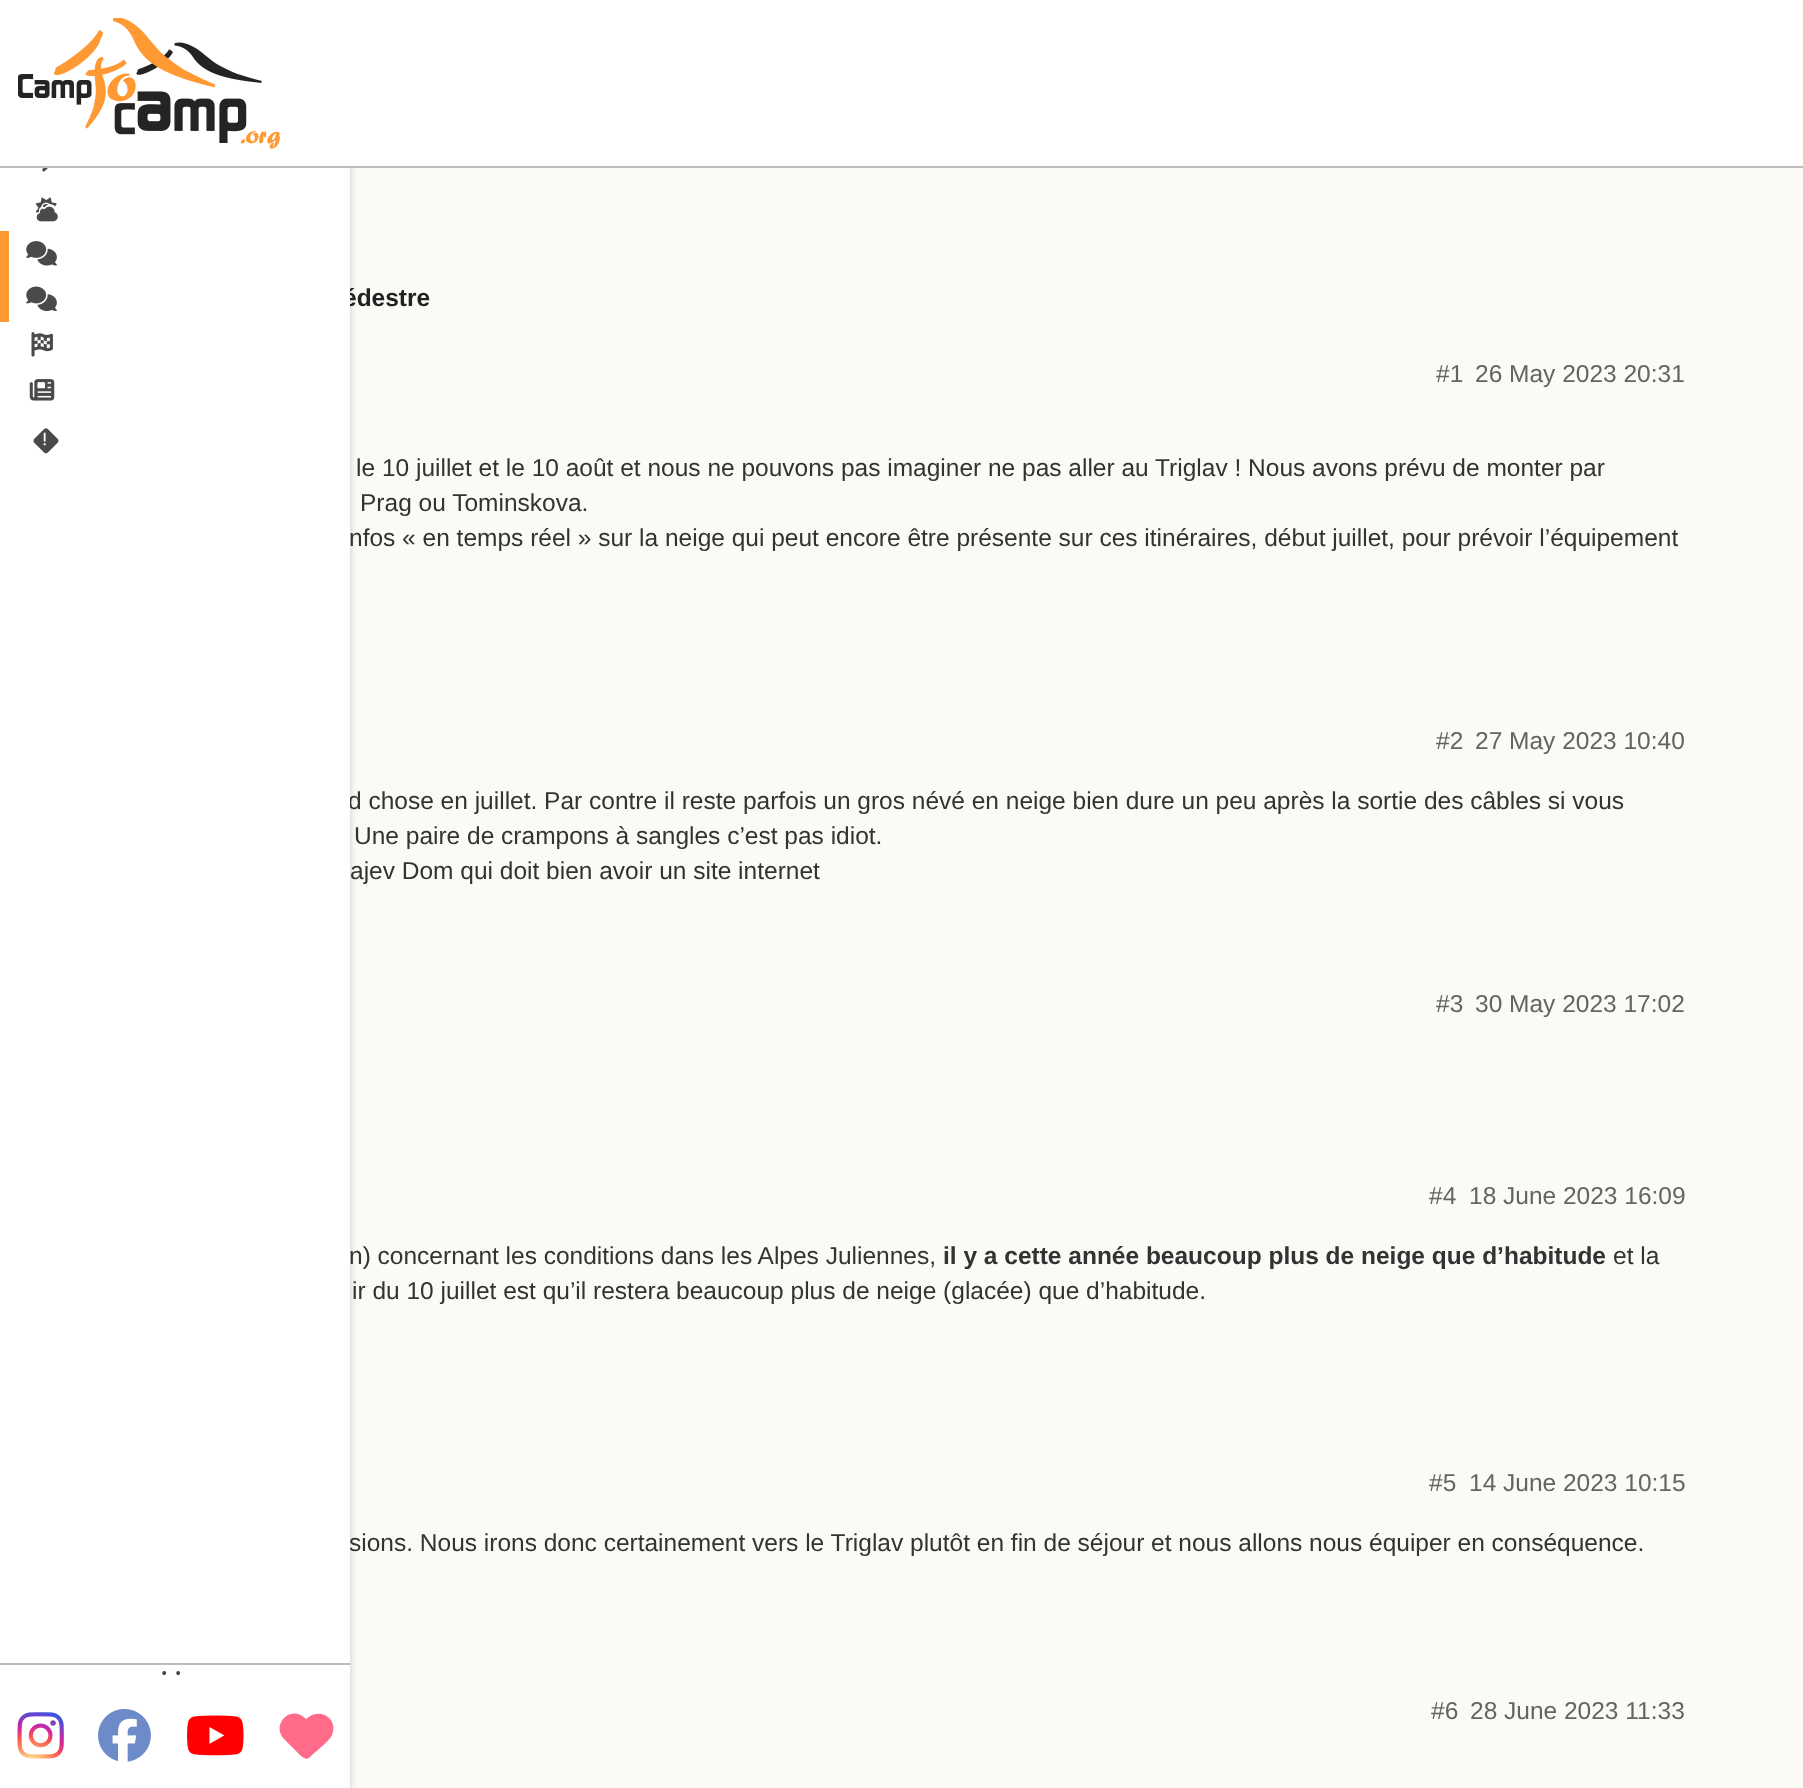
<svg xmlns="http://www.w3.org/2000/svg" width="1803" height="1788">
	<rect width="100%" height="100%" fill="#FBFAF6" />
	<rect x="0" y="2" width="350" height="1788" fill="#000000" fill-opacity="0.2" filter="blur(3.5px)" />
	<rect x="0" y="0" width="1803" height="166" fill="#FFFFFF" />
	<rect x="0" y="166" width="1803" height="2" fill="#BDBDBD" />
	<image x="18" y="18" width="262" height="131" href="assets/img1.png" />
	<text x="343" y="306" font-family="Liberation Sans" font-size="24.5" font-weight="700" fill="#222222">édestre</text>
	<g font-family="Liberation Sans" font-size="24.5" fill="#333333">
		<text x="348" y="809">d chose en juillet. Par contre il reste parfois un gros névé en neige bien dure un peu après la sortie des câbles si vous</text>
		<text x="349" y="1551">sions. Nous irons donc certainement vers le Triglav plutôt en fin de séjour et nous allons nous équiper en conséquence.</text>
	</g>
	<rect x="0" y="168" width="350" height="1620" fill="#FFFFFF" />
	<image x="42" y="168" width="6" height="4" href="assets/img2.png" />
	<image x="35" y="197" width="22" height="16" href="assets/img3.png" />
	<image x="37" y="204" width="20" height="15" href="assets/img4.png" />
	<image x="36" y="206" width="22" height="16" href="assets/img5.png" />
	<rect x="0" y="231" width="9" height="91" fill="#FF9933" />
	<image x="26" y="241" width="31" height="25" href="assets/img6.png" />
	<image x="26" y="286" width="31" height="26" href="assets/img7.png" />
	<image x="31" y="332" width="22" height="25" href="assets/img8.png" />
	<image x="29" y="379" width="26" height="22" href="assets/img9.png" />
	<image x="33" y="428" width="26" height="26" href="assets/img10.png" />
	<image x="43" y="432" width="3" height="14" href="assets/img11.png" />
	<rect x="0" y="1663" width="350" height="2" fill="#BDBDBD" />
	<g font-family="Roboto" font-size="19" fill="#4A4A4A">
		<text x="161" y="1680">•</text>
		<text x="175" y="1680">•</text>
	</g>
	<image x="17" y="1712" width="47" height="47" href="assets/img12.png" />
	<image x="98" y="1708" width="53" height="54" href="assets/img13.png" />
	<image x="187" y="1715" width="57" height="41" href="assets/img14.png" />
	<path d="M285 1740L304 1757L285 1740L300 1755C306 1760 307 1760 312 1755L319 1749C323 1745 329 1741 332 1735C339 1719 320 1706 306 1719C290 1703 270 1726 285 1740Z" fill="#FF6B89" />
	<g font-family="Liberation Sans" font-size="24.5" fill="#646464">
		<text x="1436" y="382">#1</text>
		<text x="1475" y="382">26 May 2023 20:31</text>
	</g>
	<g font-family="Liberation Sans" font-size="24.5" fill="#333333">
		<text x="356" y="476">le 10 juillet et le 10 août et nous ne pouvons pas imaginer ne pas aller au Triglav ! Nous avons prévu de monter par</text>
		<text x="360" y="511">Prag ou Tominskova.</text>
		<text x="349" y="546">nfos « en temps réel » sur la neige qui peut encore être présente sur ces itinéraires, début juillet, pour prévoir l’équipement</text>
	</g>
	<g font-family="Liberation Sans" font-size="24.5" fill="#646464">
		<text x="1436" y="749">#2</text>
		<text x="1475" y="749">27 May 2023 10:40</text>
	</g>
	<g font-family="Liberation Sans" font-size="24.5" fill="#333333">
		<text x="354" y="844">Une paire de crampons à sangles c’est pas idiot.</text>
		<text x="350" y="879">ajev Dom qui doit bien avoir un site internet</text>
	</g>
	<g font-family="Liberation Sans" font-size="24.5" fill="#646464">
		<text x="1436" y="1012">#3</text>
		<text x="1475" y="1012">30 May 2023 17:02</text>
		<text x="1429" y="1204">#4</text>
		<text x="1469" y="1204">18 June 2023 16:09</text>
	</g>
	<text x="349" y="1264" font-family="Liberation Sans" font-size="24.5" fill="#333333">n) concernant les conditions dans les Alpes Juliennes,</text>
	<text x="943" y="1264" font-family="Liberation Sans" font-size="24.5" font-weight="700" fill="#333333">il y a cette année beaucoup plus de neige que d’habitude</text>
	<g font-family="Liberation Sans" font-size="24.5" fill="#333333">
		<text x="1613" y="1264">et la</text>
		<text x="352" y="1299">ir du 10 juillet est qu’il restera beaucoup plus de neige (glacée) que d’habitude.</text>
	</g>
	<g font-family="Liberation Sans" font-size="24.5" fill="#646464">
		<text x="1429" y="1491">#5</text>
		<text x="1469" y="1491">14 June 2023 10:15</text>
		<text x="1431" y="1719">#6</text>
		<text x="1470" y="1719">28 June 2023 11:33</text>
	</g>
</svg>
